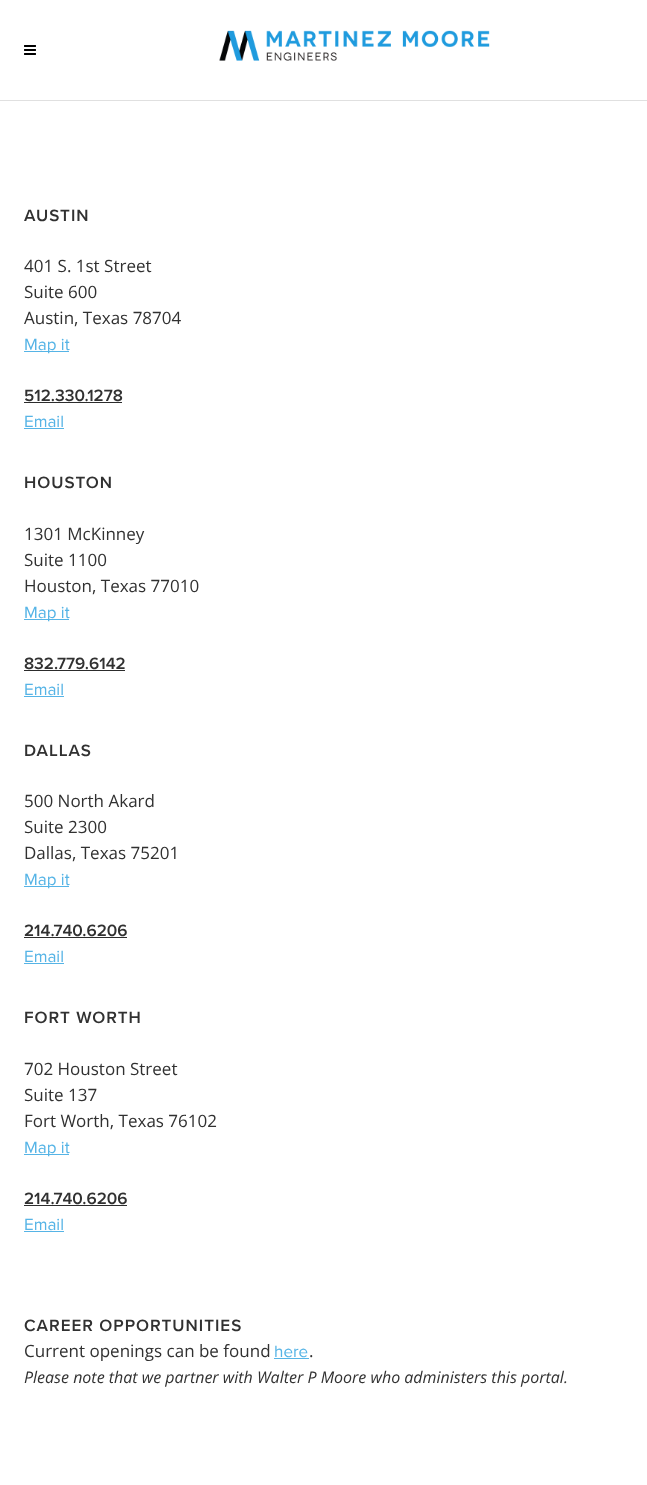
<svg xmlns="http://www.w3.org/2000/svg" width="647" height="1485">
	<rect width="100%" height="100%" fill="#FFFFFF" />
	<rect x="0" y="100" width="647" height="1" fill="#E0E0E0" />
	<image x="24" y="45" width="12" height="10" href="assets/img1.png" />
	<image x="219" y="30" width="271" height="31" href="assets/img2.png" />
	<text x="24" y="221" font-family="Proxima Nova" font-size="17" font-weight="600" letter-spacing="1" fill="#313131">AUSTIN</text>
	<g font-family="Open Sans" font-size="17" fill="#313131">
		<text x="24" y="272">401 S. 1st Street</text>
		<text x="24" y="298">Suite 600</text>
		<text x="24" y="324">Austin, Texas 78704</text>
	</g>
	<rect x="24" y="351" width="45" height="1" fill="#56B4E6" />
	<text x="24" y="350" font-family="Proxima Nova" font-size="17" fill="#56B4E6">Map it</text>
	<text x="24" y="401" font-family="Proxima Nova" font-size="17" font-weight="600" fill="#313131">512.330.1278</text>
	<rect x="24" y="402" width="98" height="1" fill="#2C2C2C" />
	<text x="24" y="427" font-family="Proxima Nova" font-size="17" fill="#56B4E6">Email</text>
	<rect x="24" y="428" width="40" height="1" fill="#56B4E6" />
	<text x="24" y="488" font-family="Proxima Nova" font-size="17" font-weight="600" letter-spacing="1" fill="#313131">HOUSTON</text>
	<g font-family="Open Sans" font-size="17" fill="#313131">
		<text x="24" y="540">1301 McKinney</text>
		<text x="24" y="566">Suite 1100</text>
		<text x="24" y="592">Houston, Texas 77010</text>
	</g>
	<rect x="24" y="619" width="45" height="1" fill="#56B4E6" />
	<text x="24" y="618" font-family="Proxima Nova" font-size="17" fill="#56B4E6">Map it</text>
	<text x="24" y="669" font-family="Proxima Nova" font-size="17" font-weight="600" fill="#313131">832.779.6142</text>
	<rect x="24" y="670" width="101" height="1" fill="#2C2C2C" />
	<text x="24" y="695" font-family="Proxima Nova" font-size="17" fill="#56B4E6">Email</text>
	<rect x="24" y="696" width="40" height="1" fill="#56B4E6" />
	<text x="24" y="756" font-family="Proxima Nova" font-size="17" font-weight="600" letter-spacing="1" fill="#313131">DALLAS</text>
	<g font-family="Open Sans" font-size="17" fill="#313131">
		<text x="24" y="807">500 North Akard</text>
		<text x="24" y="833">Suite 2300</text>
		<text x="24" y="859">Dallas, Texas 75201</text>
	</g>
	<rect x="24" y="886" width="45" height="1" fill="#56B4E6" />
	<text x="24" y="885" font-family="Proxima Nova" font-size="17" fill="#56B4E6">Map it</text>
	<text x="24" y="936" font-family="Proxima Nova" font-size="17" font-weight="600" fill="#313131">214.740.6206</text>
	<rect x="24" y="937" width="103" height="1" fill="#2C2C2C" />
	<text x="24" y="962" font-family="Proxima Nova" font-size="17" fill="#56B4E6">Email</text>
	<rect x="24" y="963" width="40" height="1" fill="#56B4E6" />
	<text x="24" y="1023" font-family="Proxima Nova" font-size="17" font-weight="600" letter-spacing="1" fill="#313131">FORT WORTH</text>
	<g font-family="Open Sans" font-size="17" fill="#313131">
		<text x="24" y="1075">702 Houston Street</text>
		<text x="24" y="1101">Suite 137</text>
		<text x="24" y="1127">Fort Worth, Texas 76102</text>
	</g>
	<rect x="24" y="1154" width="45" height="1" fill="#56B4E6" />
	<text x="24" y="1153" font-family="Proxima Nova" font-size="17" fill="#56B4E6">Map it</text>
	<text x="24" y="1204" font-family="Proxima Nova" font-size="17" font-weight="600" fill="#313131">214.740.6206</text>
	<rect x="24" y="1205" width="103" height="1" fill="#2C2C2C" />
	<text x="24" y="1230" font-family="Proxima Nova" font-size="17" fill="#56B4E6">Email</text>
	<rect x="24" y="1231" width="40" height="1" fill="#56B4E6" />
	<text x="24" y="1331" font-family="Proxima Nova" font-size="17" font-weight="600" letter-spacing="1" fill="#313131">CAREER OPPORTUNITIES</text>
	<text x="24" y="1357" font-family="Open Sans" font-size="17" fill="#313131">Current openings can be found</text>
	<text x="274" y="1357" font-family="Proxima Nova" font-size="17" fill="#56B4E6">here</text>
	<rect x="274" y="1358" width="35" height="1" fill="#56B4E6" />
	<text x="309" y="1357" font-family="Open Sans" font-size="17" fill="#313131">.</text>
	<text x="24" y="1383" font-family="Open Sans" font-size="16" font-style="italic" fill="#313131">Please note that we partner with Walter P Moore who administers this portal.</text>
</svg>
